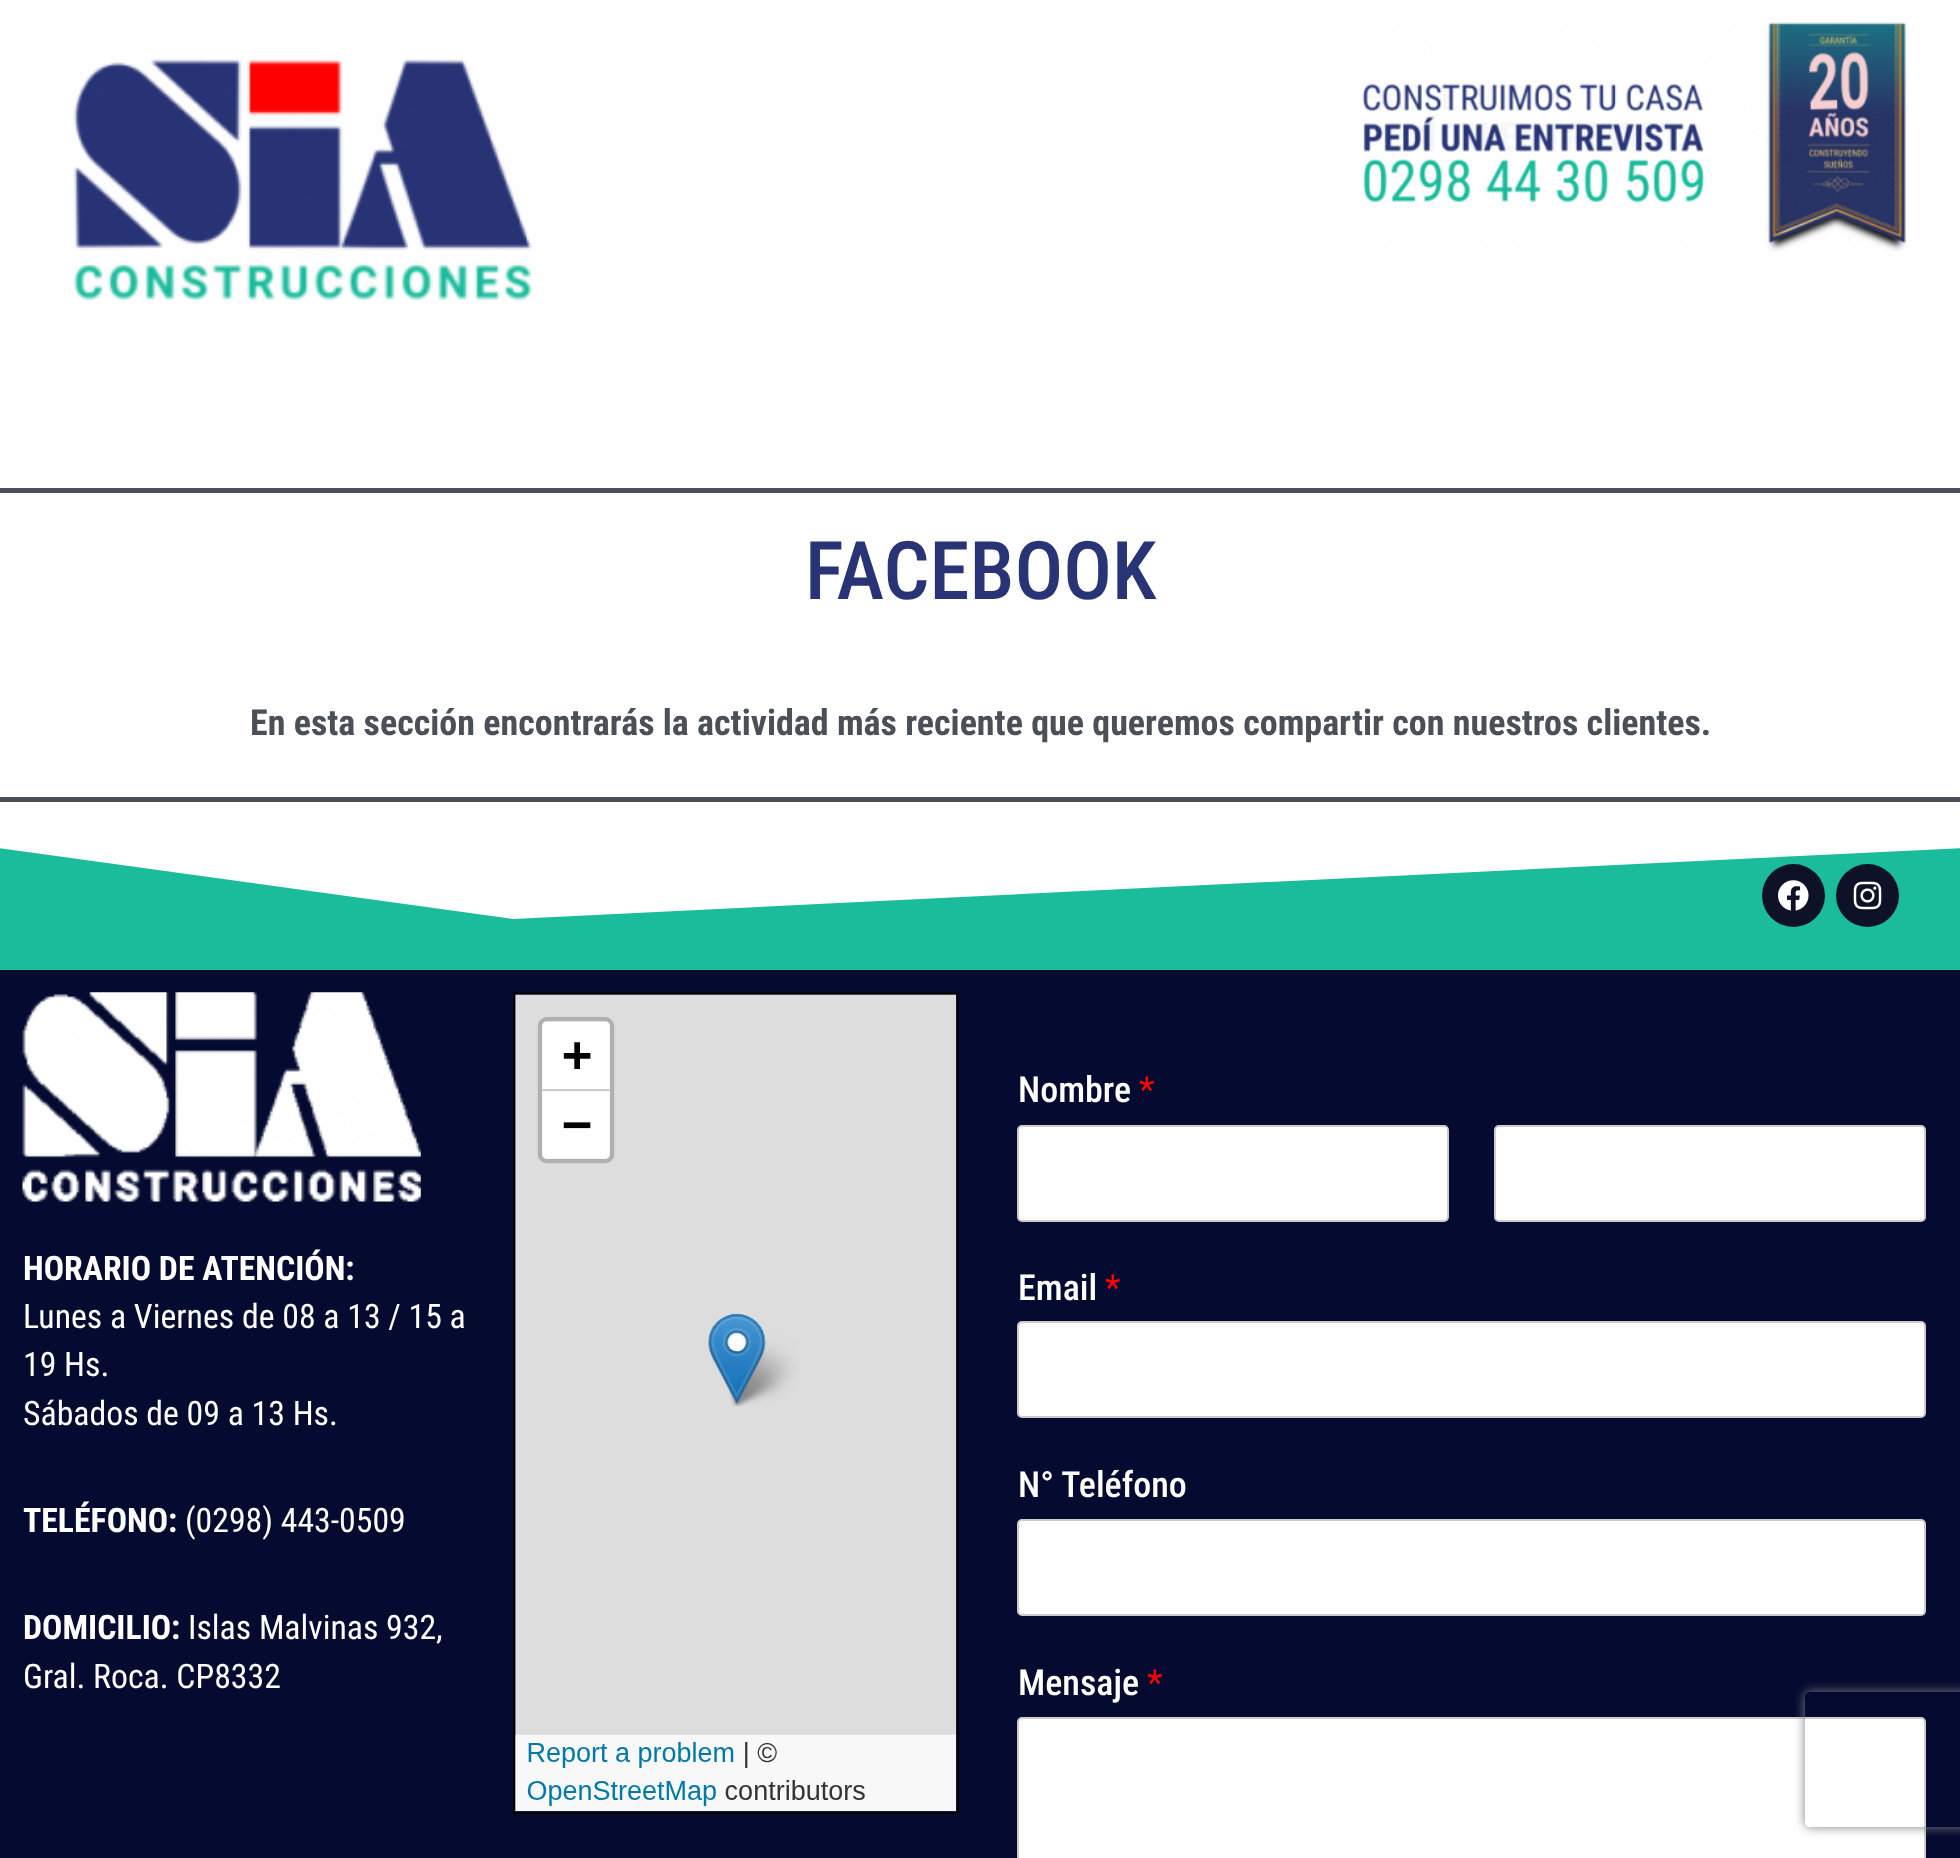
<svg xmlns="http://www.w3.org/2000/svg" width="1960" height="1858">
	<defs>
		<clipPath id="clip1"><path d="M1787 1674H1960V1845H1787ZM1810 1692H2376C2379 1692 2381 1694 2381 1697V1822C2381 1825 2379 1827 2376 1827H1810C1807 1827 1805 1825 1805 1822V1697C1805 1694 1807 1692 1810 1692Z" clip-rule="evenodd" /></clipPath>
	</defs>
	<rect width="100%" height="100%" fill="#FFFFFF" />
	<image x="73" y="58" width="460" height="244" href="assets/img1.png" />
	<image x="1362" y="22" width="545" height="230" href="assets/img2.png" />
	<rect x="0" y="488" width="1960" height="5" fill="#4B4F58" />
	<rect x="0" y="797" width="1960" height="5" fill="#4B4F58" />
	<text x="805" y="599" font-family="Roboto Condensed" font-size="81" font-weight="500" fill="#283476">FACEBOOK</text>
	<text x="250" y="735" font-family="Roboto Condensed" font-size="36" font-weight="700" fill="#4B4F58">En esta sección encontrarás la actividad más reciente que queremos compartir con nuestros clientes.</text>
	<rect x="0" y="848" width="1960" height="122" fill="#1ABC9C" />
	<path d="M513 919L-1 848V844H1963V848Z" fill="#FFFFFF" />
	<circle cx="1793.5" cy="895.5" r="31.5" fill="#0D1228" />
	<image x="1778" y="880" width="31" height="31" href="assets/img3.png" />
	<circle cx="1867.5" cy="895.5" r="31.5" fill="#0D1228" />
	<image x="1853" y="881" width="29" height="29" href="assets/img4.png" />
	<rect x="0" y="970" width="1960" height="888" fill="#050B30" />
	<image x="22" y="992" width="399" height="210" href="assets/img5.png" />
	<text x="23" y="1280" font-family="Roboto Condensed" font-size="33.75" font-weight="700" fill="#FFFFFF">HORARIO DE ATENCIÓN:</text>
	<g font-family="Roboto Condensed" font-size="33.75" fill="#FFFFFF">
		<text x="23" y="1328">Lunes a Viernes de 08 a 13 / 15 a</text>
		<text x="23" y="1376">19 Hs.</text>
		<text x="23" y="1425">Sábados de 09 a 13 Hs.</text>
	</g>
	<text x="23" y="1532" font-family="Roboto Condensed" font-size="33.75" font-weight="700" fill="#FFFFFF">TELÉFONO:</text>
	<text x="185" y="1532" font-family="Roboto Condensed" font-size="33.75" fill="#FFFFFF">(0298) 443-0509</text>
	<text x="23" y="1639" font-family="Roboto Condensed" font-size="33.75" font-weight="700" fill="#FFFFFF">DOMICILIO:</text>
	<g font-family="Roboto Condensed" font-size="33.75" fill="#FFFFFF">
		<text x="188" y="1639">Islas Malvinas 932,</text>
		<text x="23" y="1688">Gral. Roca. CP8332</text>
	</g>
	<rect x="514" y="993" width="444" height="820" fill="none" stroke="#000000" stroke-width="2" />
	<image x="515" y="994" width="442" height="818" href="assets/img6.png" />
	<text x="1018" y="1102" font-family="Roboto Condensed" font-size="36" font-weight="500" fill="#FFFFFF">Nombre</text>
	<text x="1139" y="1102" font-family="Roboto Condensed" font-size="36" fill="#FF0000">*</text>
	<rect x="1018" y="1126" width="430" height="95" rx="4" fill="#FFFFFF" stroke="#CCCCCC" stroke-width="2" />
	<rect x="1495" y="1126" width="430" height="95" rx="4" fill="#FFFFFF" stroke="#CCCCCC" stroke-width="2" />
	<text x="1018" y="1300" font-family="Roboto Condensed" font-size="36" font-weight="500" fill="#FFFFFF">Email</text>
	<text x="1105" y="1300" font-family="Roboto Condensed" font-size="36" fill="#FF0000">*</text>
	<rect x="1018" y="1322" width="907" height="95" rx="4" fill="#FFFFFF" stroke="#CCCCCC" stroke-width="2" />
	<text x="1018" y="1497" font-family="Roboto Condensed" font-size="36" font-weight="500" fill="#FFFFFF">N° Teléfono</text>
	<rect x="1018" y="1520" width="907" height="95" rx="4" fill="#FFFFFF" stroke="#CCCCCC" stroke-width="2" />
	<text x="1018" y="1695" font-family="Roboto Condensed" font-size="36" font-weight="500" fill="#FFFFFF">Mensaje</text>
	<text x="1147" y="1695" font-family="Roboto Condensed" font-size="36" fill="#FF0000">*</text>
	<rect x="1018" y="1718" width="907" height="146" rx="4" fill="#FFFFFF" stroke="#CCCCCC" stroke-width="2" />
	<g clip-path="url(#clip1)">
		<rect x="1805" y="1692" width="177" height="135" rx="5" fill="#808080" filter="blur(5.5px)" />
	</g>
</svg>
